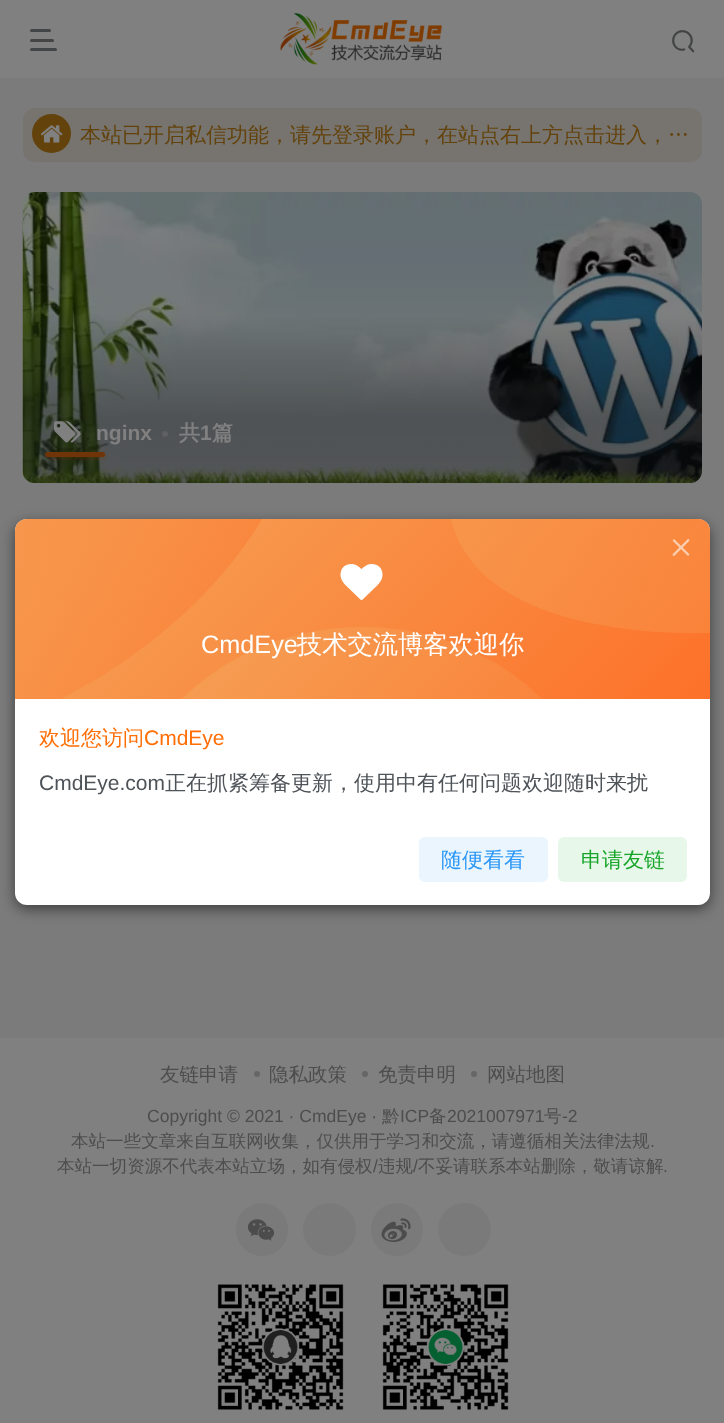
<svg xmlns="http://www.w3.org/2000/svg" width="724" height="1423">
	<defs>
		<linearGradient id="g1" gradientUnits="userSpaceOnUse" x1="362" y1="483" x2="362" y2="192"><stop offset="0.22" stop-color="#0F1519" stop-opacity="0.4" /><stop offset="0.58" stop-color="#0F1519" stop-opacity="0" /></linearGradient>
		<linearGradient id="g2" gradientUnits="userSpaceOnUse" x1="178" y1="356" x2="685" y2="862"><stop offset="0.1" stop-color="#F59F54" /><stop offset="1" stop-color="#FF6922" /></linearGradient>
		<linearGradient id="g3" gradientUnits="userSpaceOnUse" x1="132" y1="615" x2="592" y2="1074"><stop offset="0.1" stop-color="#F59F54" /><stop offset="1" stop-color="#FF6922" /></linearGradient>
		<linearGradient id="g4" gradientUnits="userSpaceOnUse" x1="-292" y1="469" x2="349" y2="594"><stop offset="0.1" stop-color="#F59F54" stop-opacity="0.4" /><stop offset="1" stop-color="#FF6922" stop-opacity="0.4" /></linearGradient>
		<linearGradient id="g5" gradientUnits="userSpaceOnUse" x1="468" y1="137" x2="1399" y2="591"><stop offset="0.1" stop-color="#F59F54" stop-opacity="0.6" /><stop offset="1" stop-color="#FF6922" stop-opacity="0.6" /></linearGradient>
	</defs>
	<rect width="100%" height="100%" fill="#7B7B7C" />
	<rect x="0" y="0" width="724" height="78" fill="#808080" />
	<rect x="30" y="29" width="21" height="3" rx="1.5" fill="#424445" />
	<rect x="30" y="39" width="24" height="3" rx="1.5" fill="#424445" />
	<rect x="30" y="48" width="27" height="3" rx="1.5" fill="#424445" />
	<image x="280" y="13" width="162" height="52" href="assets/img1.png" />
	<image x="672" y="30" width="23" height="23" href="assets/img2.png" />
	<rect x="23" y="108" width="679" height="54" rx="12" fill="#777470" />
	<circle cx="51.5" cy="133.5" r="19.5" fill="#63430B" />
	<image x="40" y="125" width="23" height="18" href="assets/img3.png" />
	<text x="80" y="142" font-family="WenQuanYi Zen Hei" font-size="21" font-weight="500" fill="#63430B">本站已开启私信功能，请先登录账户，在站点右上方点击进入，…</text>
	<image x="22" y="192" width="680" height="291" href="assets/img4.png" />
	<rect x="23" y="192" width="679" height="291" rx="12" fill="url(#g1)" />
	<image x="54" y="421" width="27" height="22" href="assets/img5.png" />
	<text x="96" y="440" font-family="Liberation Sans" font-size="21" font-weight="700" fill="#808080">nginx</text>
	<circle cx="165" cy="434" r="3" fill="#5E6062" />
	<text x="179" y="440" font-family="WenQuanYi Zen Hei" font-size="21" font-weight="700" fill="#808080">共</text>
	<text x="200" y="440" font-family="Liberation Sans" font-size="21" font-weight="700" fill="#808080">1</text>
	<text x="212" y="440" font-family="WenQuanYi Zen Hei" font-size="21" font-weight="700" fill="#808080">篇</text>
	<rect x="48" y="455" width="57" height="2" rx="1" fill="#703409" filter="blur(2px)" />
	<rect x="45" y="452" width="60" height="5" rx="2.5" fill="#703409" />
	<rect x="15" y="524" width="695" height="385" rx="12" fill="#000000" fill-opacity="0.5" filter="blur(7px)" />
	<rect x="15" y="519" width="695" height="386" rx="12" fill="#FFFFFF" />
	<path d="M27 519H698C704.5 519 710 524.5 710 531V699H15V531C15 524.5 20.5 519 27 519Z" fill="url(#g2)" />
	<path d="M362 627C433 627 498 655 542 699H182C226 655 291 627 362 627Z" fill="url(#g3)" />
	<path d="M27 519H262C223 585 162 639 97 679L61 699H15V531C15 524 20 519 27 519Z" fill="url(#g4)" />
	<path d="M710 633C627 635 475 620 451 519H698C705 519 710 524 710 531Z" fill="url(#g5)" />
	<image x="672" y="539" width="18" height="17" href="assets/img6.png" />
	<image x="340" y="564" width="43" height="36" href="assets/img7.png" />
	<text x="201" y="653" font-family="Liberation Sans" font-size="25.25" fill="#FFFFFF">CmdEye</text>
	<text x="297" y="653" font-family="WenQuanYi Zen Hei" font-size="25.25" font-weight="500" fill="#FFFFFF">技术交流博客欢迎你</text>
	<text x="39" y="745" font-family="WenQuanYi Zen Hei" font-size="21" font-weight="500" fill="#FF6F06">欢迎您访问</text>
	<text x="144" y="745" font-family="Liberation Sans" font-size="21" fill="#FF6F06">CmdEye</text>
	<text x="39" y="790" font-family="Liberation Sans" font-size="21" fill="#4E5358">CmdEye.com</text>
	<text x="165" y="790" font-family="WenQuanYi Zen Hei" font-size="21" font-weight="500" fill="#4E5358">正在抓紧筹备更新，使用中有任何问题欢迎随时来扰</text>
	<rect x="419" y="837" width="129" height="45" rx="6" fill="#EAF5FE" />
	<text x="441" y="867" font-family="WenQuanYi Zen Hei" font-size="21" font-weight="500" fill="#2997F7">随便看看</text>
	<rect x="558" y="837" width="129" height="45" rx="6" fill="#E7F8EA" />
	<text x="581" y="867" font-family="WenQuanYi Zen Hei" font-size="21" font-weight="500" fill="#18A52A">申请友链</text>
	<rect x="0" y="1038" width="724" height="385" fill="#808080" />
	<text x="160" y="1081" font-family="WenQuanYi Zen Hei" font-size="19.5" font-weight="500" fill="#4D4D4D">友链申请</text>
	<circle cx="257" cy="1074" r="3" fill="#656667" />
	<text x="269" y="1081" font-family="WenQuanYi Zen Hei" font-size="19.5" font-weight="500" fill="#4D4D4D">隐私政策</text>
	<circle cx="365" cy="1074" r="3" fill="#656667" />
	<text x="378" y="1081" font-family="WenQuanYi Zen Hei" font-size="19.5" font-weight="500" fill="#4D4D4D">免责申明</text>
	<circle cx="474" cy="1074" r="3" fill="#656667" />
	<text x="487" y="1081" font-family="WenQuanYi Zen Hei" font-size="19.5" font-weight="500" fill="#4D4D4D">网站地图</text>
	<text x="147" y="1122" font-family="Liberation Sans" font-size="17.55" fill="#4D4D4D">Copyright © 2021 · CmdEye ·</text>
	<text x="382" y="1122" font-family="WenQuanYi Zen Hei" font-size="17.55" font-weight="500" fill="#4D4D4D">黔</text>
	<text x="400" y="1122" font-family="Liberation Sans" font-size="17.55" fill="#4D4D4D">ICP</text>
	<text x="429" y="1122" font-family="WenQuanYi Zen Hei" font-size="17.55" font-weight="500" fill="#4D4D4D">备</text>
	<text x="447" y="1122" font-family="Liberation Sans" font-size="17.55" fill="#4D4D4D">2021007971</text>
	<text x="544" y="1122" font-family="WenQuanYi Zen Hei" font-size="17.55" font-weight="500" fill="#4D4D4D">号</text>
	<text x="562" y="1122" font-family="Liberation Sans" font-size="17.55" fill="#4D4D4D">-2</text>
	<text x="71" y="1147" font-family="WenQuanYi Zen Hei" font-size="17.55" font-weight="500" fill="#4D4D4D">本站一些文章来自互联网收集，仅供用于学习和交流，请遵循相关法律法规</text>
	<text x="650" y="1147" font-family="Liberation Sans" font-size="17.55" fill="#4D4D4D">.</text>
	<text x="57" y="1172" font-family="WenQuanYi Zen Hei" font-size="17.55" font-weight="500" fill="#4D4D4D">本站一切资源不代表本站立场，如有侵权</text>
	<text x="373" y="1172" font-family="Liberation Sans" font-size="17.55" fill="#4D4D4D">/</text>
	<text x="378" y="1172" font-family="WenQuanYi Zen Hei" font-size="17.55" font-weight="500" fill="#4D4D4D">违规</text>
	<text x="413" y="1172" font-family="Liberation Sans" font-size="17.55" fill="#4D4D4D">/</text>
	<text x="418" y="1172" font-family="WenQuanYi Zen Hei" font-size="17.55" font-weight="500" fill="#4D4D4D">不妥请联系本站删除，敬请谅解</text>
	<text x="663" y="1172" font-family="Liberation Sans" font-size="17.55" fill="#4D4D4D">.</text>
	<rect x="236" y="1203" width="52" height="53" rx="26" fill="#7A7A7A" />
	<image x="247" y="1219" width="28" height="22" href="assets/img8.png" />
	<circle cx="329.5" cy="1229.5" r="26.5" fill="#7A7A7A" />
	<rect x="371" y="1203" width="52" height="53" rx="26" fill="#7A7A7A" />
	<image x="381" y="1218" width="30" height="24" href="assets/img9.png" />
	<circle cx="464.5" cy="1229.5" r="26.5" fill="#7A7A7A" />
	<image x="217" y="1284" width="127" height="126" href="assets/img10.png" />
	<image x="382" y="1284" width="127" height="126" href="assets/img11.png" />
</svg>
